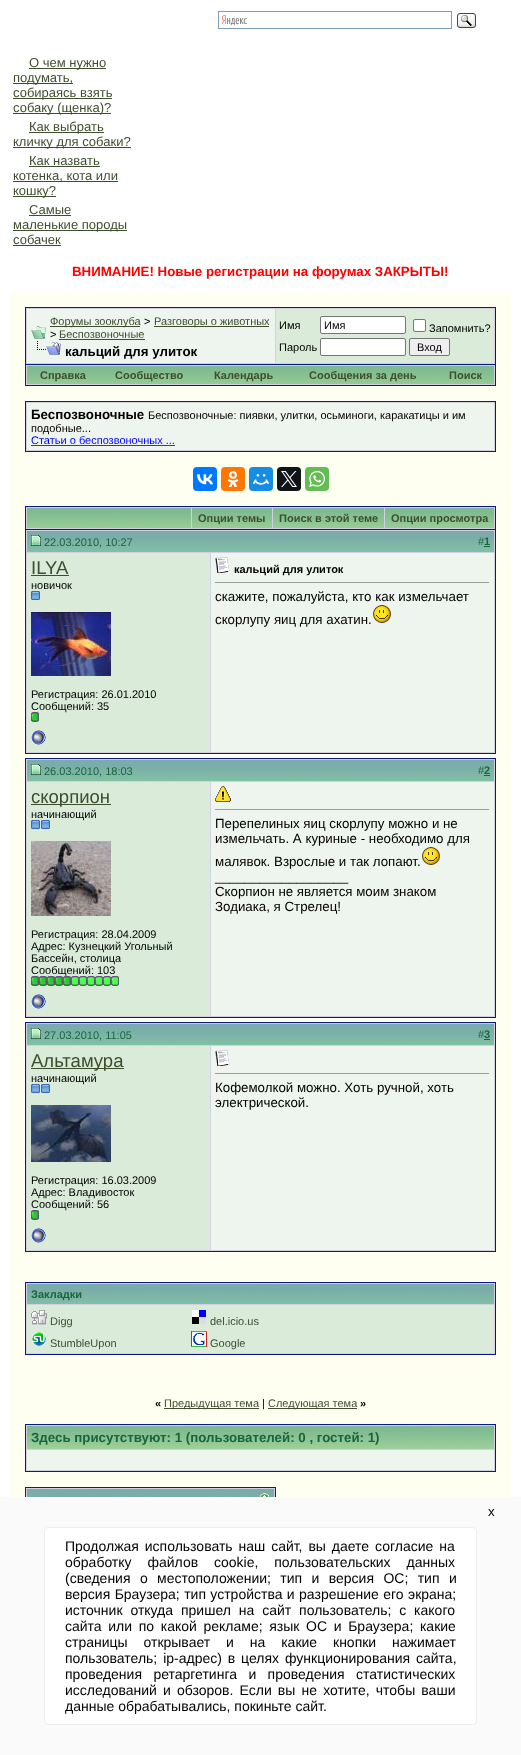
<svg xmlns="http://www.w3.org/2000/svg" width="521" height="1755">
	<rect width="100%" height="100%" fill="#FFFFFF" />
	<image x="221" y="15" width="26" height="11" href="assets/img1.png" />
	<rect x="218.5" y="11.5" width="233" height="17" fill="none" stroke="#7F9DB9" />
	<image x="457" y="13" width="19" height="15" href="assets/img2.png" />
	<rect x="29" y="68" width="77" height="1" fill="#3D4E2D" />
	<text x="29" y="67" font-family="Liberation Sans" font-size="13" fill="#3D4E2D">О чем нужно</text>
	<rect x="13" y="83" width="60" height="1" fill="#3D4E2D" />
	<text x="13" y="82" font-family="Liberation Sans" font-size="13" fill="#3D4E2D">подумать,</text>
	<rect x="13" y="98" width="99" height="1" fill="#3D4E2D" />
	<text x="13" y="97" font-family="Liberation Sans" font-size="13" fill="#3D4E2D">собираясь взять</text>
	<rect x="13" y="113" width="98" height="1" fill="#3D4E2D" />
	<text x="13" y="112" font-family="Liberation Sans" font-size="13" fill="#3D4E2D">собаку (щенка)?</text>
	<rect x="29" y="132" width="75" height="1" fill="#3D4E2D" />
	<text x="29" y="131" font-family="Liberation Sans" font-size="13" fill="#3D4E2D">Как выбрать</text>
	<rect x="13" y="147" width="118" height="1" fill="#3D4E2D" />
	<g font-family="Liberation Sans" font-size="13" fill="#3D4E2D">
		<text x="13" y="146">кличку для собаки?</text>
		<text x="29" y="165">Как назвать</text>
	</g>
	<rect x="29" y="166" width="71" height="1" fill="#3D4E2D" />
	<rect x="13" y="181" width="105" height="1" fill="#3D4E2D" />
	<text x="13" y="180" font-family="Liberation Sans" font-size="13" fill="#3D4E2D">котенка, кота или</text>
	<rect x="13" y="196" width="43" height="1" fill="#3D4E2D" />
	<g font-family="Liberation Sans" font-size="13" fill="#3D4E2D">
		<text x="13" y="195">кошку?</text>
		<text x="29" y="214">Самые</text>
	</g>
	<rect x="29" y="215" width="42" height="1" fill="#3D4E2D" />
	<rect x="13" y="230" width="114" height="1" fill="#3D4E2D" />
	<g font-family="Liberation Sans" font-size="13" fill="#3D4E2D">
		<text x="13" y="229">маленькие породы</text>
		<text x="13" y="244">собачек</text>
	</g>
	<rect x="13" y="245" width="48" height="1" fill="#3D4E2D" />
	<text x="72" y="276" font-family="Liberation Sans" font-size="13.3" font-weight="700" fill="#FF0000">ВНИМАНИЕ! Новые регистрации на форумах ЗАКРЫТЫ!</text>
	<rect x="10" y="292" width="501" height="1205" fill="#FFFFF1" />
	<rect x="25.5" y="307.5" width="470" height="57" fill="#D1D1E1" stroke="#0B198C" />
	<rect x="27" y="309" width="248" height="54" fill="#EEF4EE" />
	<image x="31" y="326" width="15" height="13" href="assets/img3.png" />
	<rect x="50" y="326" width="90" height="1" fill="#3D4E2D" />
	<text x="50" y="325" font-family="Liberation Sans" font-size="11" fill="#3D4E2D">Форумы зооклуба</text>
	<text x="144" y="325" font-family="Liberation Sans" font-size="11" fill="#000000">&gt;</text>
	<rect x="154" y="326" width="115" height="1" fill="#3D4E2D" />
	<text x="154" y="325" font-family="Liberation Sans" font-size="11" fill="#3D4E2D">Разговоры о животных</text>
	<text x="50" y="338" font-family="Liberation Sans" font-size="11" fill="#000000">&gt;</text>
	<text x="59" y="338" font-family="Liberation Sans" font-size="11" fill="#3D4E2D">Беспозвоночные</text>
	<rect x="59" y="339" width="86" height="1" fill="#3D4E2D" />
	<image x="37" y="341" width="24" height="14" href="assets/img4.png" />
	<text x="65" y="356" font-family="Liberation Sans" font-size="13.3" font-weight="700" fill="#000000">кальций для улиток</text>
	<rect x="276" y="309" width="218" height="54" fill="#DAEBDA" />
	<text x="279" y="329" font-family="Liberation Sans" font-size="11" fill="#000000">Имя</text>
	<rect x="320.5" y="316.5" width="85" height="17" rx="1.5" fill="#FFFFFF" stroke="#767676" />
	<text x="324" y="329" font-family="Liberation Sans" font-size="11" fill="#000000">Имя</text>
	<rect x="413.5" y="319.5" width="12" height="12" rx="1.5" fill="#FFFFFF" stroke="#767676" />
	<g font-family="Liberation Sans" font-size="11" fill="#000000">
		<text x="429" y="332">Запомнить?</text>
		<text x="279" y="351">Пароль</text>
	</g>
	<rect x="320.5" y="338.5" width="85" height="17" rx="1.5" fill="#FFFFFF" stroke="#767676" />
	<rect x="409.5" y="338.5" width="40" height="17" rx="1.5" fill="#EFEFEF" stroke="#767676" />
	<text x="417" y="351" font-family="Liberation Sans" font-size="11" fill="#000000">Вход</text>
	<rect x="26" y="365" width="469" height="20" fill="#D1D1E1" />
	<rect x="495" y="365" width="1" height="21" fill="#0B198C" />
	<rect x="25" y="385" width="471" height="1" fill="#0B198C" />
	<rect x="25" y="365" width="1" height="21" fill="#0B198C" />
	<image x="27" y="366" width="72" height="18" href="assets/img5.png" />
	<text x="40" y="379" font-family="Liberation Sans" font-size="11" font-weight="700" fill="#3D4E2D">Справка</text>
	<image x="99" y="366" width="101" height="18" href="assets/img6.png" />
	<text x="115" y="379" font-family="Liberation Sans" font-size="11" font-weight="700" fill="#3D4E2D">Сообщество</text>
	<image x="200" y="366" width="88" height="18" href="assets/img7.png" />
	<text x="214" y="379" font-family="Liberation Sans" font-size="11" font-weight="700" fill="#3D4E2D">Календарь</text>
	<image x="288" y="366" width="150" height="18" href="assets/img8.png" />
	<text x="309" y="379" font-family="Liberation Sans" font-size="11" font-weight="700" fill="#3D4E2D">Сообщения за день</text>
	<image x="438" y="366" width="56" height="18" href="assets/img9.png" />
	<text x="449" y="379" font-family="Liberation Sans" font-size="11" font-weight="700" fill="#3D4E2D">Поиск</text>
	<rect x="25.5" y="401.5" width="470" height="50" fill="#D1D1E1" stroke="#0B198C" />
	<rect x="27" y="403" width="467" height="47" fill="#EEF4EE" />
	<text x="31" y="419" font-family="Liberation Sans" font-size="13.3" font-weight="700" fill="#000000">Беспозвоночные</text>
	<g font-family="Liberation Sans" font-size="11" fill="#000000">
		<text x="148" y="419">Беспозвоночные: пиявки, улитки, осьминоги, каракатицы и им</text>
		<text x="31" y="432">подобные...</text>
	</g>
	<text x="31" y="444" font-family="Liberation Sans" font-size="11" fill="#0000FF">Статьи о беспозвоночных ...</text>
	<rect x="31" y="445" width="144" height="1" fill="#3D4E2D" />
	<rect x="193" y="467" width="24" height="24" rx="4" fill="#0077FF" />
	<image x="197" y="474" width="16" height="11" href="assets/img10.png" />
	<rect x="221" y="467" width="24" height="24" rx="4" fill="#FF7700" />
	<image x="227" y="471" width="12" height="16" href="assets/img11.png" />
	<rect x="249" y="467" width="24" height="24" rx="4" fill="#168DE2" />
	<image x="253" y="474" width="16" height="11" href="assets/img12.png" />
	<rect x="277" y="467" width="24" height="24" rx="4" fill="#0F1419" />
	<image x="281" y="471" width="16" height="16" href="assets/img13.png" />
	<rect x="305" y="467" width="24" height="24" rx="4" fill="#65BC54" />
	<image x="309" y="471" width="16" height="16" href="assets/img14.png" />
	<rect x="26" y="507" width="469" height="22" fill="#D1D1E1" />
	<rect x="25" y="506" width="471" height="1" fill="#0B198C" />
	<rect x="495" y="506" width="1" height="23" fill="#0B198C" />
	<rect x="25" y="506" width="1" height="23" fill="#0B198C" />
	<image x="27" y="508" width="164" height="20" href="assets/img15.png" />
	<image x="192" y="508" width="80" height="20" href="assets/img16.png" />
	<text x="198" y="522" font-family="Liberation Sans" font-size="11" font-weight="700" fill="#3D4E2D">Опции темы</text>
	<image x="273" y="508" width="111" height="20" href="assets/img17.png" />
	<text x="279" y="522" font-family="Liberation Sans" font-size="11" font-weight="700" fill="#3D4E2D">Поиск в этой теме</text>
	<image x="385" y="508" width="109" height="20" href="assets/img18.png" />
	<text x="391" y="522" font-family="Liberation Sans" font-size="11" font-weight="700" fill="#3D4E2D">Опции просмотра</text>
	<rect x="25.5" y="529.5" width="470" height="224" fill="none" stroke="#0B198C" />
	<image x="27" y="531" width="184" height="21" href="assets/img19.png" />
	<rect x="26" y="530" width="469" height="1" fill="#D1D1E1" />
	<rect x="26" y="552" width="185" height="1" fill="#D1D1E1" />
	<rect x="26" y="530" width="1" height="196" fill="#D1D1E1" />
	<image x="31" y="535" width="10" height="11" href="assets/img20.png" />
	<text x="44" y="546" font-family="Liberation Sans" font-size="11" fill="#1A653C">22.03.2010, 10:27</text>
	<image x="211" y="531" width="283" height="21" href="assets/img21.png" />
	<rect x="494" y="530" width="1" height="223" fill="#D1D1E1" />
	<rect x="211" y="552" width="284" height="1" fill="#D1D1E1" />
	<text x="478" y="545" font-family="Liberation Sans" font-size="11" fill="#1A653C">#</text>
	<text x="484" y="545" font-family="Liberation Sans" font-size="11" font-weight="700" fill="#1A653C">1</text>
	<rect x="484" y="546" width="6" height="1" fill="#1A653C" />
	<rect x="27" y="553" width="183" height="199" fill="#DAEBDA" />
	<rect x="210" y="553" width="1" height="200" fill="#D1D1E1" />
	<text x="31" y="574" font-family="Liberation Sans" font-size="18.5" fill="#3D4E2D">ILYA</text>
	<rect x="31" y="575" width="38" height="1" fill="#3D4E2D" />
	<text x="31" y="589" font-family="Liberation Sans" font-size="11" fill="#000000">новичок</text>
	<image x="31" y="591" width="9" height="9" href="assets/img22.png" />
	<image x="31" y="612" width="80" height="64" href="assets/img23.png" />
	<g font-family="Liberation Sans" font-size="11" fill="#000000">
		<text x="31" y="698">Регистрация: 26.01.2010</text>
		<text x="31" y="710">Сообщений: 35</text>
	</g>
	<image x="31" y="712" width="8" height="10" href="assets/img24.png" />
	<rect x="211" y="553" width="283" height="199" fill="#EEF4EE" />
	<image x="215" y="557" width="15" height="16" href="assets/img25.png" />
	<text x="234" y="573" font-family="Liberation Sans" font-size="11" font-weight="700" fill="#000000">кальций для улиток</text>
	<rect x="215" y="582" width="275" height="1" fill="#9F9F9F" />
	<rect x="489" y="582" width="1" height="1" fill="#EEEEEE" />
	<g font-family="Liberation Sans" font-size="13.3" fill="#000000">
		<text x="215" y="601">скажите, пожалуйста, кто как измельчает</text>
		<text x="215" y="624">скорлупу яиц для ахатин.</text>
	</g>
	<image x="373" y="605" width="18" height="18" href="assets/img26.png" />
	<rect x="26" y="752" width="469" height="1" fill="#D1D1E1" />
	<rect x="26" y="726" width="1" height="27" fill="#D1D1E1" />
	<image x="31" y="730" width="15" height="15" href="assets/img27.png" />
	<rect x="25.5" y="758.5" width="470" height="259" fill="none" stroke="#0B198C" />
	<image x="27" y="760" width="184" height="21" href="assets/img19.png" />
	<rect x="26" y="759" width="469" height="1" fill="#D1D1E1" />
	<rect x="26" y="781" width="185" height="1" fill="#D1D1E1" />
	<rect x="26" y="759" width="1" height="231" fill="#D1D1E1" />
	<image x="31" y="764" width="10" height="11" href="assets/img20.png" />
	<text x="44" y="775" font-family="Liberation Sans" font-size="11" fill="#1A653C">26.03.2010, 18:03</text>
	<image x="211" y="760" width="283" height="21" href="assets/img21.png" />
	<rect x="494" y="759" width="1" height="258" fill="#D1D1E1" />
	<rect x="211" y="781" width="284" height="1" fill="#D1D1E1" />
	<text x="478" y="774" font-family="Liberation Sans" font-size="11" fill="#1A653C">#</text>
	<text x="484" y="774" font-family="Liberation Sans" font-size="11" font-weight="700" fill="#1A653C">2</text>
	<rect x="484" y="775" width="6" height="1" fill="#1A653C" />
	<rect x="27" y="782" width="183" height="234" fill="#DAEBDA" />
	<rect x="210" y="782" width="1" height="235" fill="#D1D1E1" />
	<rect x="31" y="804" width="80" height="1" fill="#3D4E2D" />
	<text x="31" y="803" font-family="Liberation Sans" font-size="18.5" fill="#3D4E2D">скорпион</text>
	<text x="31" y="818" font-family="Liberation Sans" font-size="11" fill="#000000">начинающий</text>
	<image x="31" y="820" width="19" height="9" href="assets/img28.png" />
	<image x="31" y="841" width="80" height="75" href="assets/img29.png" />
	<g font-family="Liberation Sans" font-size="11" fill="#000000">
		<text x="31" y="938">Регистрация: 28.04.2009</text>
		<text x="31" y="950">Адрес: Кузнецкий Угольный</text>
		<text x="31" y="962">Бассейн, столица</text>
		<text x="31" y="974">Сообщений: 103</text>
	</g>
	<image x="31" y="976" width="8" height="10" href="assets/img24.png" />
	<image x="39" y="976" width="8" height="10" href="assets/img24.png" />
	<image x="47" y="976" width="8" height="10" href="assets/img24.png" />
	<image x="55" y="976" width="8" height="10" href="assets/img24.png" />
	<image x="63" y="976" width="8" height="10" href="assets/img24.png" />
	<image x="71" y="976" width="8" height="10" href="assets/img30.png" />
	<image x="79" y="976" width="8" height="10" href="assets/img30.png" />
	<image x="87" y="976" width="8" height="10" href="assets/img30.png" />
	<image x="95" y="976" width="8" height="10" href="assets/img30.png" />
	<image x="103" y="976" width="8" height="10" href="assets/img30.png" />
	<image x="111" y="976" width="8" height="10" href="assets/img30.png" />
	<rect x="211" y="782" width="283" height="234" fill="#EEF4EE" />
	<image x="215" y="786" width="16" height="16" href="assets/img31.png" />
	<rect x="215" y="809" width="275" height="1" fill="#9F9F9F" />
	<rect x="489" y="809" width="1" height="1" fill="#EEEEEE" />
	<g font-family="Liberation Sans" font-size="13.3" fill="#000000">
		<text x="215" y="828">Перепелиных яиц скорлупу можно и не</text>
		<text x="215" y="843">измельчать. А куриные - необходимо для</text>
		<text x="215" y="866">малявок. Взрослые и так лопают.</text>
	</g>
	<image x="422" y="847" width="18" height="18" href="assets/img26.png" />
	<g font-family="Liberation Sans" font-size="13.3" fill="#000000">
		<text x="215" y="881">__________________</text>
		<text x="215" y="896">Скорпион не является моим знаком</text>
		<text x="215" y="911">Зодиака, я Стрелец!</text>
	</g>
	<rect x="26" y="1016" width="469" height="1" fill="#D1D1E1" />
	<rect x="26" y="990" width="1" height="27" fill="#D1D1E1" />
	<image x="31" y="994" width="15" height="15" href="assets/img27.png" />
	<rect x="25.5" y="1022.5" width="470" height="229" fill="none" stroke="#0B198C" />
	<image x="27" y="1024" width="184" height="21" href="assets/img19.png" />
	<rect x="26" y="1023" width="469" height="1" fill="#D1D1E1" />
	<rect x="26" y="1045" width="185" height="1" fill="#D1D1E1" />
	<rect x="26" y="1023" width="1" height="201" fill="#D1D1E1" />
	<image x="31" y="1028" width="10" height="11" href="assets/img20.png" />
	<text x="44" y="1039" font-family="Liberation Sans" font-size="11" fill="#1A653C">27.03.2010, 11:05</text>
	<image x="211" y="1024" width="283" height="21" href="assets/img21.png" />
	<rect x="494" y="1023" width="1" height="228" fill="#D1D1E1" />
	<rect x="211" y="1045" width="284" height="1" fill="#D1D1E1" />
	<text x="478" y="1038" font-family="Liberation Sans" font-size="11" fill="#1A653C">#</text>
	<text x="484" y="1038" font-family="Liberation Sans" font-size="11" font-weight="700" fill="#1A653C">3</text>
	<rect x="484" y="1039" width="6" height="1" fill="#1A653C" />
	<rect x="27" y="1046" width="183" height="204" fill="#DAEBDA" />
	<rect x="210" y="1046" width="1" height="205" fill="#D1D1E1" />
	<rect x="31" y="1068" width="93" height="1" fill="#3D4E2D" />
	<text x="31" y="1067" font-family="Liberation Sans" font-size="18.5" fill="#3D4E2D">Альтамура</text>
	<text x="31" y="1082" font-family="Liberation Sans" font-size="11" fill="#000000">начинающий</text>
	<image x="31" y="1084" width="19" height="9" href="assets/img28.png" />
	<image x="31" y="1105" width="80" height="57" href="assets/img32.png" />
	<g font-family="Liberation Sans" font-size="11" fill="#000000">
		<text x="31" y="1184">Регистрация: 16.03.2009</text>
		<text x="31" y="1196">Адрес: Владивосток</text>
		<text x="31" y="1208">Сообщений: 56</text>
	</g>
	<image x="31" y="1210" width="8" height="10" href="assets/img24.png" />
	<rect x="211" y="1046" width="283" height="204" fill="#EEF4EE" />
	<image x="215" y="1050" width="15" height="16" href="assets/img25.png" />
	<rect x="215" y="1073" width="275" height="1" fill="#9F9F9F" />
	<rect x="489" y="1073" width="1" height="1" fill="#EEEEEE" />
	<g font-family="Liberation Sans" font-size="13.3" fill="#000000">
		<text x="215" y="1092">Кофемолкой можно. Хоть ручной, хоть</text>
		<text x="215" y="1107">электрической.</text>
	</g>
	<rect x="26" y="1250" width="469" height="1" fill="#D1D1E1" />
	<rect x="26" y="1224" width="1" height="27" fill="#D1D1E1" />
	<image x="31" y="1228" width="15" height="15" href="assets/img27.png" />
	<rect x="25.5" y="1282.5" width="470" height="72" fill="#D1D1E1" stroke="#0B198C" />
	<image x="27" y="1284" width="467" height="20" href="assets/img33.png" />
	<text x="31" y="1298" font-family="Liberation Sans" font-size="11" font-weight="700" fill="#1A653C">Закладки</text>
	<rect x="27" y="1305" width="467" height="48" fill="#DAEBDA" />
	<image x="31" y="1310" width="16" height="15" href="assets/img34.png" />
	<text x="50" y="1325" font-family="Liberation Sans" font-size="11" fill="#3D4E2D">Digg</text>
	<image x="192" y="1310" width="14" height="14" href="assets/img35.png" />
	<text x="210" y="1325" font-family="Liberation Sans" font-size="11" fill="#3D4E2D">del.icio.us</text>
	<image x="32" y="1332" width="14" height="14" href="assets/img36.png" />
	<text x="50" y="1347" font-family="Liberation Sans" font-size="11" fill="#3D4E2D">StumbleUpon</text>
	<image x="191" y="1331" width="16" height="16" href="assets/img37.png" />
	<text x="210" y="1347" font-family="Liberation Sans" font-size="11" fill="#3D4E2D">Google</text>
	<text x="155" y="1407" font-family="Liberation Sans" font-size="11" font-weight="700" fill="#000000">«</text>
	<rect x="164" y="1408" width="95" height="1" fill="#3D4E2D" />
	<text x="164" y="1407" font-family="Liberation Sans" font-size="11" fill="#3D4E2D">Предыдущая тема</text>
	<text x="262" y="1407" font-family="Liberation Sans" font-size="11" fill="#000000">|</text>
	<rect x="268" y="1408" width="89" height="1" fill="#3D4E2D" />
	<text x="268" y="1407" font-family="Liberation Sans" font-size="11" fill="#3D4E2D">Следующая тема</text>
	<text x="360" y="1407" font-family="Liberation Sans" font-size="11" font-weight="700" fill="#000000">»</text>
	<rect x="25.5" y="1424.5" width="470" height="47" fill="#D1D1E1" stroke="#0B198C" />
	<image x="27" y="1426" width="467" height="23" href="assets/img38.png" />
	<text x="31" y="1442" font-family="Liberation Sans" font-size="13.3" font-weight="700" fill="#1A653C">Здесь присутствуют: 1 (пользователей: 0 , гостей: 1)</text>
	<rect x="27" y="1450" width="467" height="20" fill="#EEF4EE" />
	<rect x="26" y="1488" width="249" height="9" fill="#D1D1E1" />
	<rect x="25.5" y="1487.5" width="250" height="166" fill="none" stroke="#0B198C" />
	<image x="27" y="1489" width="247" height="8" href="assets/img39.png" />
	<image x="260" y="1493" width="9" height="4" href="assets/img40.png" />
	<rect x="0" y="1497" width="521" height="258" fill="#FAFAFA" />
	<rect x="44.5" y="1527.5" width="432" height="197" rx="3.5" fill="#FFFFFF" stroke="#EEEEEE" />
	<text x="488" y="1516" font-family="Liberation Sans" font-size="13.3" fill="#000000">x</text>
	<g font-family="Liberation Sans" font-size="14" fill="#000000">
		<text x="65" y="1551" word-spacing="2">Продолжая использовать наш сайт, вы даете согласие на</text>
		<text x="65" y="1567" word-spacing="12">обработку файлов cookie, пользовательских данных</text>
		<text x="65" y="1583" word-spacing="5.5">(сведения о местоположении; тип и версия ОС; тип и</text>
		<text x="65" y="1599" word-spacing="0.5">версия Браузера; тип устройства и разрешение его экрана;</text>
		<text x="65" y="1615" word-spacing="4">источник откуда пришел на сайт пользователь; с какого</text>
		<text x="65" y="1631" word-spacing="2.75">сайта или по какой рекламе; язык ОС и Браузера; какие</text>
		<text x="65" y="1647" word-spacing="12">страницы открывает и на какие кнопки нажимает</text>
		<text x="65" y="1663" word-spacing="2">пользователь; ip-адрес) в целях функционирования сайта,</text>
		<text x="65" y="1679" word-spacing="7.5">проведения ретаргетинга и проведения статистических</text>
		<text x="65" y="1695" word-spacing="2.25">исследований и обзоров. Если вы не хотите, чтобы ваши</text>
		<text x="65" y="1711">данные обрабатывались, покиньте сайт.</text>
	</g>
</svg>
